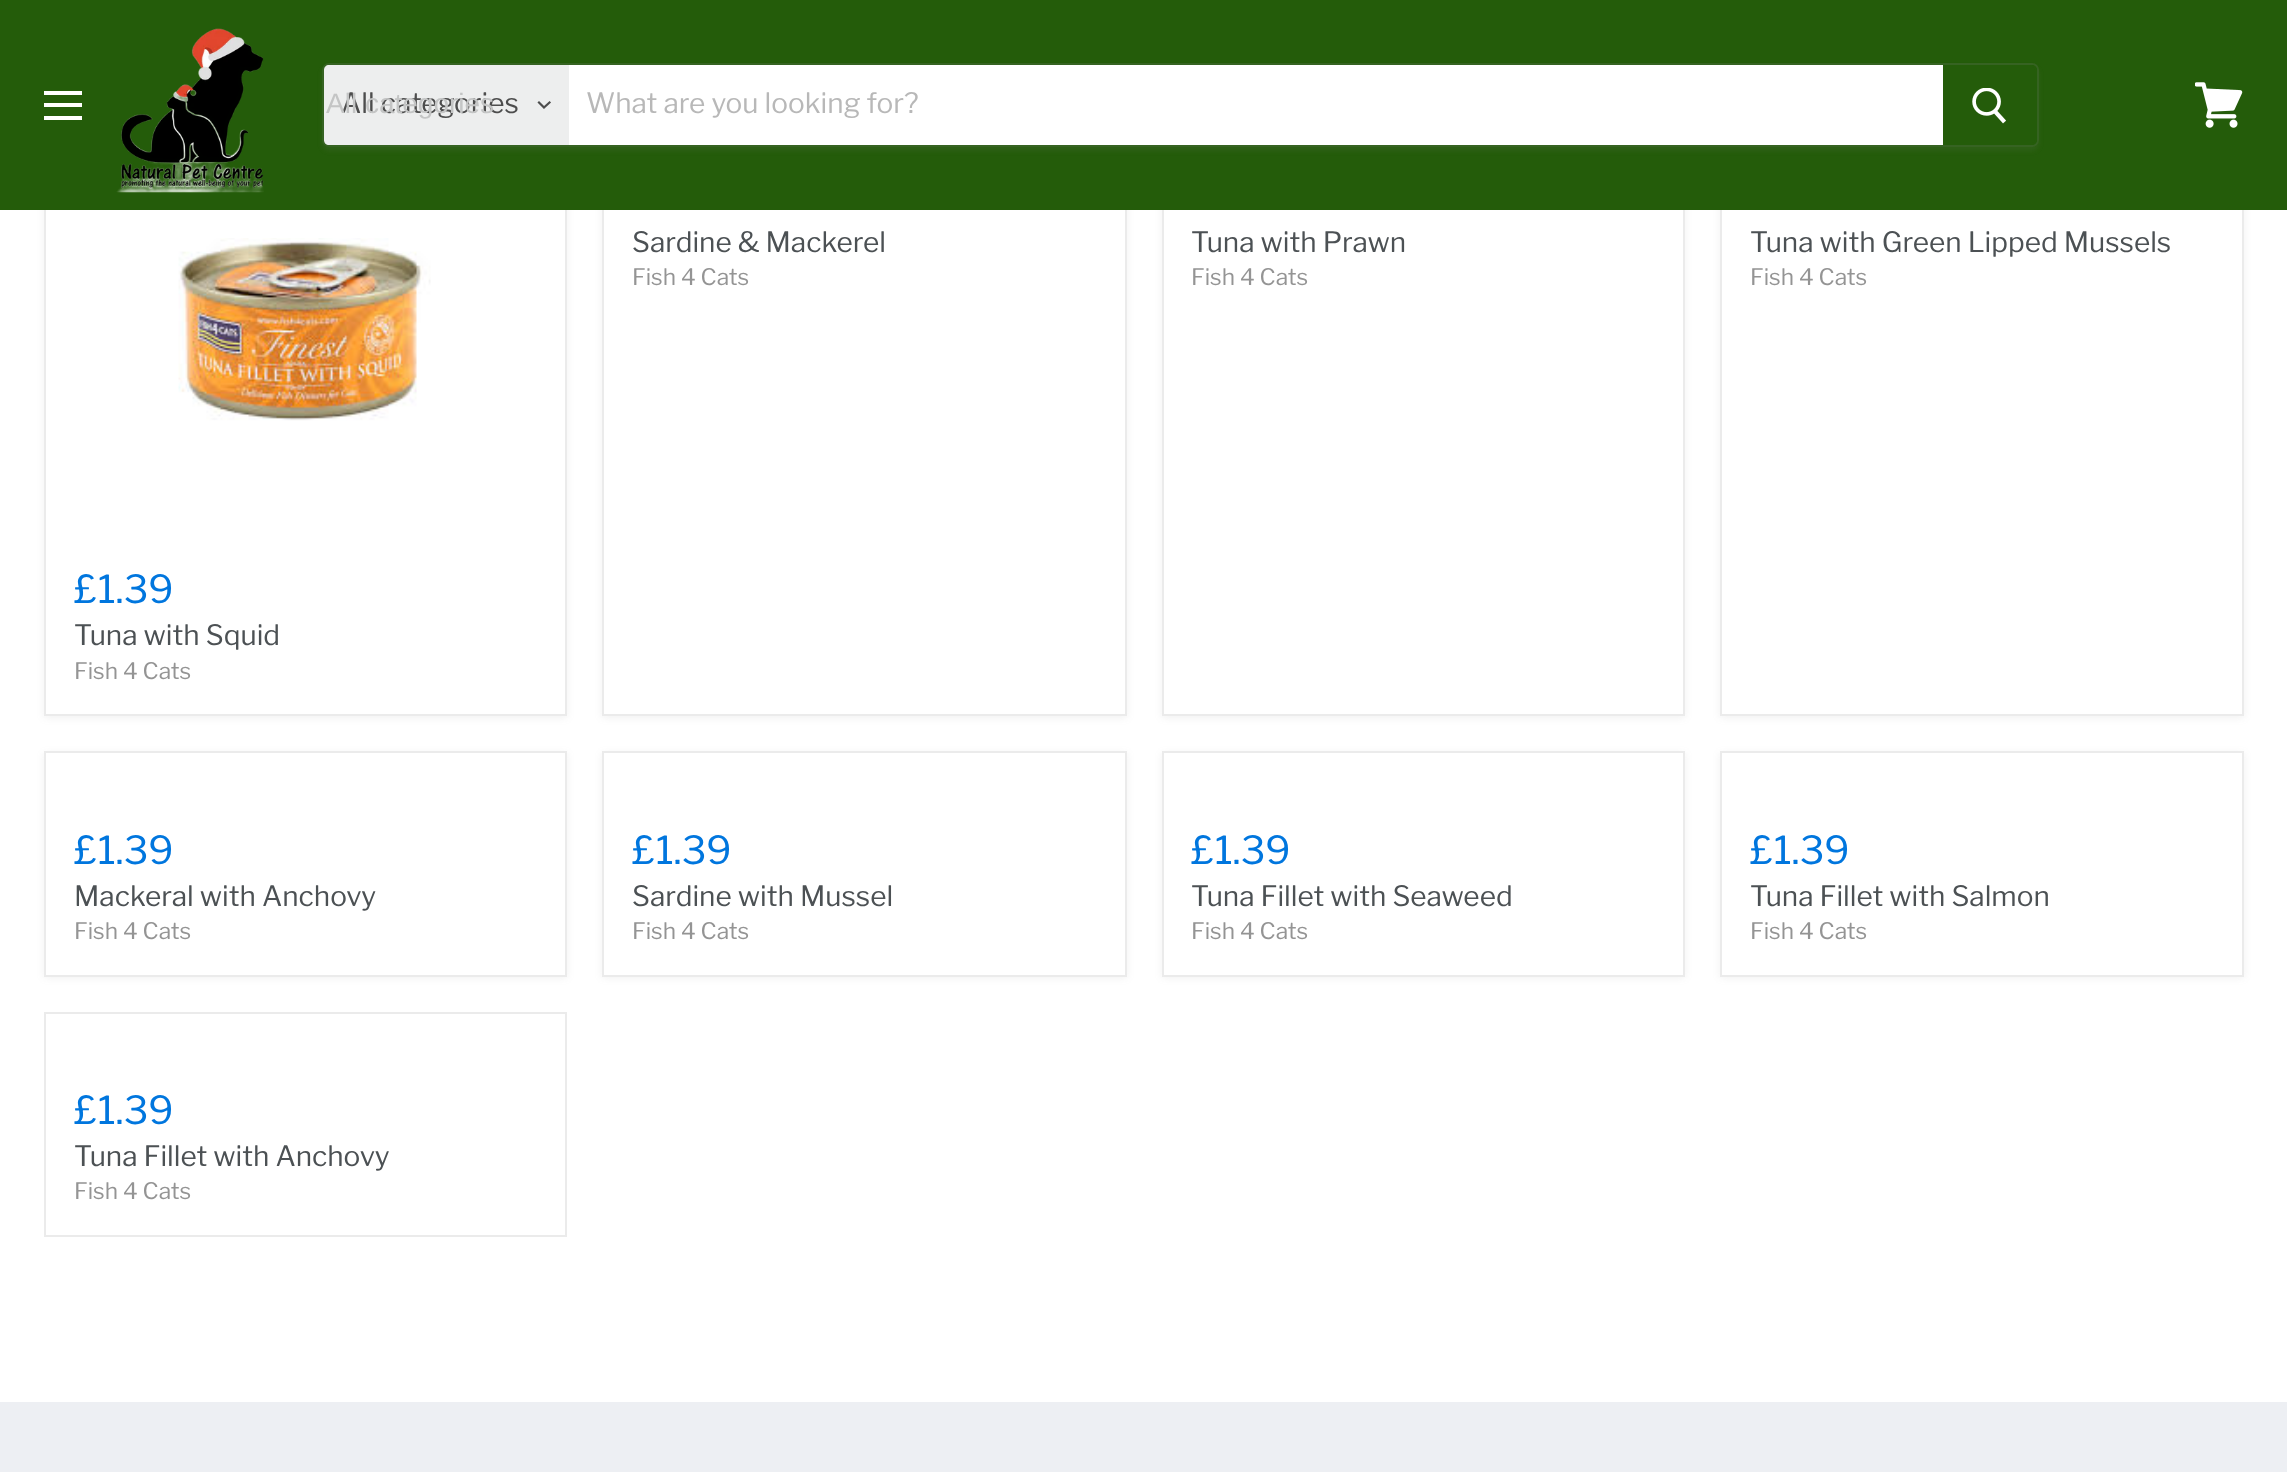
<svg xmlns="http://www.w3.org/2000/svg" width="2287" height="1472">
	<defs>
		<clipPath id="clip1"><path d="M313 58H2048V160H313ZM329 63H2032C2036 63 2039 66 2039 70V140C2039 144 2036 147 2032 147H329C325 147 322 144 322 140V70C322 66 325 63 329 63Z" clip-rule="evenodd" /></clipPath>
	</defs>
	<rect width="100%" height="100%" fill="#FFFFFF" />
	<rect x="602" y="98" width="525" height="620" fill="#808080" fill-opacity="0.11" filter="blur(3.5px)" />
	<rect x="604" y="210" width="521" height="504" fill="#FFFFFF" />
	<rect x="603" y="97" width="523" height="618" fill="none" stroke="#EBEBEB" stroke-width="2" />
	<rect x="1162" y="98" width="523" height="620" fill="#808080" fill-opacity="0.11" filter="blur(3.5px)" />
	<rect x="1164" y="210" width="519" height="504" fill="#FFFFFF" />
	<rect x="1163" y="97" width="521" height="618" fill="none" stroke="#EBEBEB" stroke-width="2" />
	<rect x="1720" y="98" width="524" height="620" fill="#808080" fill-opacity="0.11" filter="blur(3.5px)" />
	<rect x="1722" y="210" width="520" height="504" fill="#FFFFFF" />
	<rect x="1721" y="97" width="522" height="618" fill="none" stroke="#EBEBEB" stroke-width="2" />
	<rect x="44" y="98" width="523" height="620" fill="#808080" fill-opacity="0.11" filter="blur(3.5px)" />
	<rect x="46" y="210" width="519" height="504" fill="#FFFFFF" />
	<rect x="45" y="97" width="521" height="618" fill="none" stroke="#EBEBEB" stroke-width="2" />
	<rect x="0" y="0" width="2287" height="210" fill="#245C0A" />
	<rect x="44" y="91" width="38" height="4" fill="#FFFFFF" />
	<rect x="44" y="103" width="38" height="4" fill="#FFFFFF" />
	<rect x="44" y="116" width="38" height="4" fill="#FFFFFF" />
	<image x="116" y="28" width="148" height="165" href="assets/img1.png" />
	<g clip-path="url(#clip1)">
		<rect x="322" y="67" width="1717" height="84" rx="7" fill="#808080" fill-opacity="0.11" filter="blur(2.5px)" />
	</g>
	<rect x="323" y="64" width="1715" height="82" rx="6" fill="none" stroke="#808080" stroke-opacity="0.2" stroke-width="2" />
	<path d="M329 65H569V145H329C326 145 324 143 324 140V70C324 67 326 65 329 65Z" fill="#EDEEEE" />
	<text x="341" y="113" font-family="Libre Franklin" font-size="28" fill="#4D4D4D">All categories</text>
	<text x="326" y="113" font-family="Liberation Sans" font-size="28" fill="#C4C5C5">All categories</text>
	<path d="M544 107.5L549.5 102.5M544 107.5L539 102.5" fill="none" stroke="#4D4D4D" stroke-width="2.2" stroke-linecap="square" />
	<rect x="569" y="65" width="1374" height="80" fill="#FFFFFF" />
	<text x="586" y="113" font-family="Libre Franklin" font-size="28" fill="#B8B8B8">What are you looking for?</text>
	<path d="M1944 66H2032C2034 66 2036 68 2036 70V140C2036 142 2034 144 2032 144H1944Z" fill="#245C0A" stroke="#245C0A" stroke-width="2" />
	<image x="1972" y="88" width="34" height="36" href="assets/img2.png" />
	<image x="2195" y="82" width="48" height="46" href="assets/img3.png" />
	<text x="632" y="252" font-family="Libre Franklin" font-size="28" fill="#4C5154">Sardine &amp; Mackerel</text>
	<text x="632" y="285" font-family="Libre Franklin" font-size="22.75" fill="#949494">Fish 4 Cats</text>
	<text x="1191" y="252" font-family="Libre Franklin" font-size="28" fill="#4C5154">Tuna with Prawn</text>
	<text x="1191" y="285" font-family="Libre Franklin" font-size="22.75" fill="#949494">Fish 4 Cats</text>
	<text x="1750" y="252" font-family="Libre Franklin" font-size="28" fill="#4C5154">Tuna with Green Lipped Mussels</text>
	<text x="1750" y="285" font-family="Libre Franklin" font-size="22.75" fill="#949494">Fish 4 Cats</text>
	<image x="178" y="238" width="253" height="183" href="assets/img4.png" />
	<text x="74" y="603" font-family="Libre Franklin" font-size="38.5" fill="#0076DE">£1.39</text>
	<text x="74" y="645" font-family="Libre Franklin" font-size="28" fill="#4C5154">Tuna with Squid</text>
	<text x="74" y="679" font-family="Libre Franklin" font-size="22.75" fill="#949494">Fish 4 Cats</text>
	<rect x="44" y="753" width="523" height="225" fill="#808080" fill-opacity="0.11" filter="blur(3.5px)" />
	<rect x="45" y="752" width="521" height="224" fill="#FFFFFF" stroke="#EBEBEB" stroke-width="2" />
	<text x="74" y="864" font-family="Libre Franklin" font-size="38.5" fill="#0076DE">£1.39</text>
	<text x="74" y="906" font-family="Libre Franklin" font-size="28" fill="#4C5154">Mackeral with Anchovy</text>
	<text x="74" y="939" font-family="Libre Franklin" font-size="22.75" fill="#949494">Fish 4 Cats</text>
	<rect x="602" y="753" width="525" height="225" fill="#808080" fill-opacity="0.11" filter="blur(3.5px)" />
	<rect x="603" y="752" width="523" height="224" fill="#FFFFFF" stroke="#EBEBEB" stroke-width="2" />
	<text x="632" y="864" font-family="Libre Franklin" font-size="38.5" fill="#0076DE">£1.39</text>
	<text x="632" y="906" font-family="Libre Franklin" font-size="28" fill="#4C5154">Sardine with Mussel</text>
	<text x="632" y="939" font-family="Libre Franklin" font-size="22.75" fill="#949494">Fish 4 Cats</text>
	<rect x="1162" y="753" width="523" height="225" fill="#808080" fill-opacity="0.11" filter="blur(3.5px)" />
	<rect x="1163" y="752" width="521" height="224" fill="#FFFFFF" stroke="#EBEBEB" stroke-width="2" />
	<text x="1191" y="864" font-family="Libre Franklin" font-size="38.5" fill="#0076DE">£1.39</text>
	<text x="1191" y="906" font-family="Libre Franklin" font-size="28" fill="#4C5154">Tuna Fillet with Seaweed</text>
	<text x="1191" y="939" font-family="Libre Franklin" font-size="22.75" fill="#949494">Fish 4 Cats</text>
	<rect x="1720" y="753" width="524" height="225" fill="#808080" fill-opacity="0.11" filter="blur(3.5px)" />
	<rect x="1721" y="752" width="522" height="224" fill="#FFFFFF" stroke="#EBEBEB" stroke-width="2" />
	<text x="1750" y="864" font-family="Libre Franklin" font-size="38.5" fill="#0076DE">£1.39</text>
	<text x="1750" y="906" font-family="Libre Franklin" font-size="28" fill="#4C5154">Tuna Fillet with Salmon</text>
	<text x="1750" y="939" font-family="Libre Franklin" font-size="22.75" fill="#949494">Fish 4 Cats</text>
	<rect x="45" y="1013" width="521" height="223" fill="none" stroke="#EBEBEB" stroke-width="2" />
	<text x="74" y="1124" font-family="Libre Franklin" font-size="38.5" fill="#0076DE">£1.39</text>
	<text x="74" y="1166" font-family="Libre Franklin" font-size="28" fill="#4C5154">Tuna Fillet with Anchovy</text>
	<text x="74" y="1199" font-family="Libre Franklin" font-size="22.75" fill="#949494">Fish 4 Cats</text>
	<rect x="0" y="1402" width="2287" height="70" fill="#EDEFF3" />
</svg>
